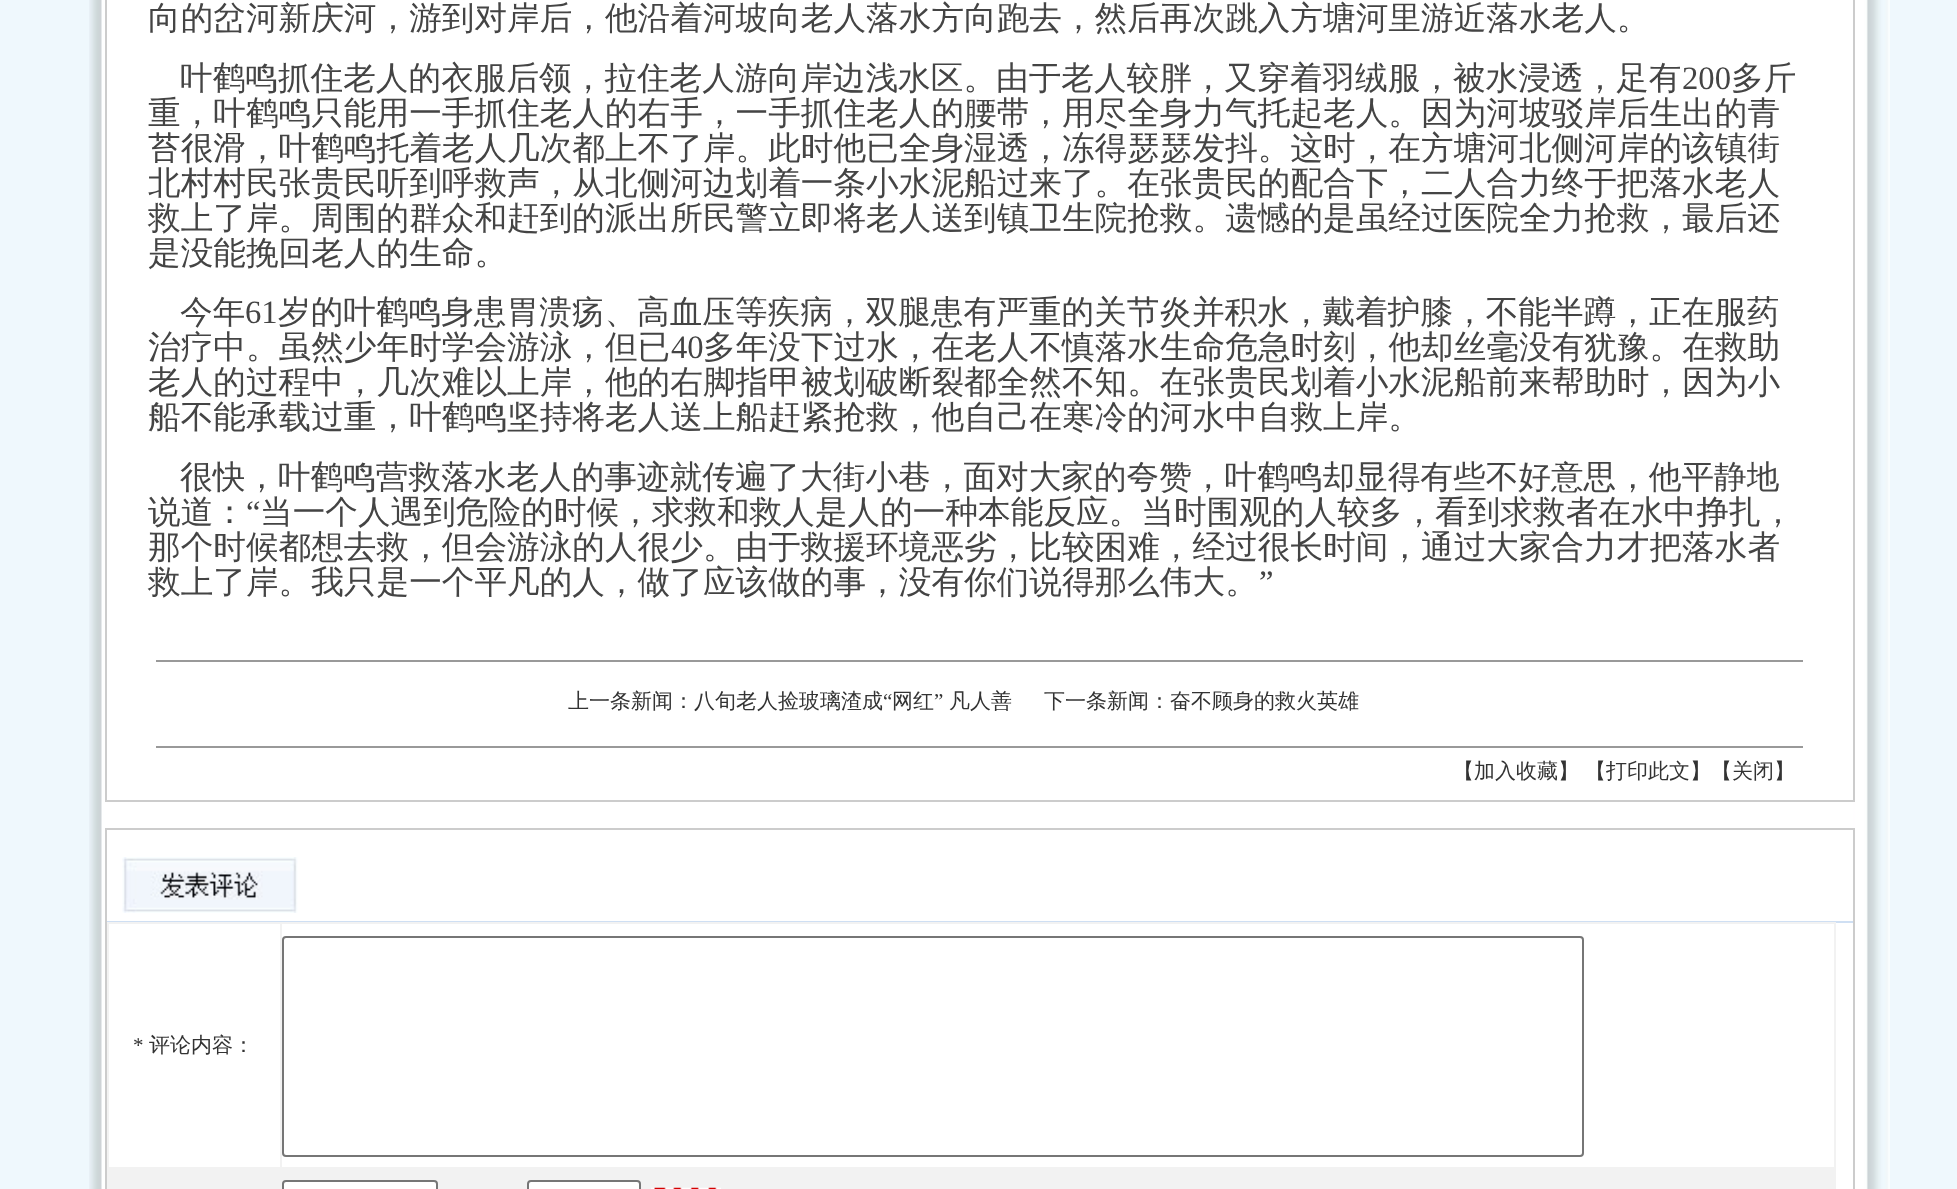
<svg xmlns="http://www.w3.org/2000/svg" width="1957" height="1189">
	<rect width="100%" height="100%" fill="#EFF8FD" />
	<image x="89" y="0" width="1801" height="1189" href="assets/img1.png" />
	<rect x="102" y="0" width="1" height="1189" fill="#FFFFFF" />
	<rect x="106" y="-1" width="1748" height="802" fill="none" stroke="#CCCCCC" stroke-width="2" />
	<g font-family="WenQuanYi Zen Hei" font-size="32.65" font-weight="500" fill="#444444">
		<text x="148" y="29">向的岔河新庆河，游到对岸后，他沿着河坡向老人落水方向跑去，然后再次跳入方塘河里游近落水老人。</text>
		<text x="180" y="89">叶鹤鸣抓住老人的衣服后领，拉住老人游向岸边浅水区。由于老人较胖，又穿着羽绒服，被水浸透，足有</text>
	</g>
	<text x="1682" y="89" font-family="Liberation Serif" font-size="32.65" fill="#444444">200</text>
	<g font-family="WenQuanYi Zen Hei" font-size="32.65" font-weight="500" fill="#444444">
		<text x="1731" y="89">多斤</text>
		<text x="148" y="124">重，叶鹤鸣只能用一手抓住老人的右手，一手抓住老人的腰带，用尽全身力气托起老人。因为河坡驳岸后生出的青</text>
		<text x="148" y="159">苔很滑，叶鹤鸣托着老人几次都上不了岸。此时他已全身湿透，冻得瑟瑟发抖。这时，在方塘河北侧河岸的该镇街</text>
		<text x="148" y="194">北村村民张贵民听到呼救声，从北侧河边划着一条小水泥船过来了。在张贵民的配合下，二人合力终于把落水老人</text>
		<text x="148" y="229">救上了岸。周围的群众和赶到的派出所民警立即将老人送到镇卫生院抢救。遗憾的是虽经过医院全力抢救，最后还</text>
		<text x="148" y="264">是没能挽回老人的生命。</text>
		<text x="180" y="323">今年</text>
	</g>
	<text x="245" y="323" font-family="Liberation Serif" font-size="32.65" fill="#444444">61</text>
	<g font-family="WenQuanYi Zen Hei" font-size="32.65" font-weight="500" fill="#444444">
		<text x="278" y="323">岁的叶鹤鸣身患胃溃疡、高血压等疾病，双腿患有严重的关节炎并积水，戴着护膝，不能半蹲，正在服药</text>
		<text x="148" y="358">治疗中。虽然少年时学会游泳，但已</text>
	</g>
	<text x="671" y="358" font-family="Liberation Serif" font-size="32.65" fill="#444444">40</text>
	<g font-family="WenQuanYi Zen Hei" font-size="32.65" font-weight="500" fill="#444444">
		<text x="703" y="358">多年没下过水，在老人不慎落水生命危急时刻，他却丝毫没有犹豫。在救助</text>
		<text x="148" y="393">老人的过程中，几次难以上岸，他的右脚指甲被划破断裂都全然不知。在张贵民划着小水泥船前来帮助时，因为小</text>
		<text x="148" y="428">船不能承载过重，叶鹤鸣坚持将老人送上船赶紧抢救，他自己在寒冷的河水中自救上岸。</text>
		<text x="180" y="488">很快，叶鹤鸣营救落水老人的事迹就传遍了大街小巷，面对大家的夸赞，叶鹤鸣却显得有些不好意思，他平静地</text>
		<text x="148" y="523">说道：</text>
	</g>
	<text x="246" y="523" font-family="Liberation Serif" font-size="32.65" fill="#444444">“</text>
	<g font-family="WenQuanYi Zen Hei" font-size="32.65" font-weight="500" fill="#444444">
		<text x="260" y="523">当一个人遇到危险的时候，求救和救人是人的一种本能反应。当时围观的人较多，看到求救者在水中挣扎，</text>
		<text x="148" y="558">那个时候都想去救，但会游泳的人很少。由于救援环境恶劣，比较困难，经过很长时间，通过大家合力才把落水者</text>
		<text x="148" y="593">救上了岸。我只是一个平凡的人，做了应该做的事，没有你们说得那么伟大。</text>
	</g>
	<text x="1259" y="593" font-family="Liberation Serif" font-size="32.65" fill="#444444">”</text>
	<rect x="156" y="660" width="1647" height="2" fill="#999999" />
	<rect x="156" y="746" width="1647" height="2" fill="#999999" />
	<text x="568" y="708" font-family="WenQuanYi Zen Hei" font-size="21" font-weight="500" fill="#333333">上一条新闻：八旬老人捡玻璃渣成</text>
	<text x="883" y="708" font-family="Liberation Serif" font-size="21" fill="#333333">“</text>
	<text x="892" y="708" font-family="WenQuanYi Zen Hei" font-size="21" font-weight="500" fill="#333333">网红</text>
	<text x="934" y="708" font-family="Liberation Serif" font-size="21" fill="#333333">”</text>
	<g font-family="WenQuanYi Zen Hei" font-size="21" font-weight="500" fill="#333333">
		<text x="949" y="708">凡人善</text>
		<text x="1044" y="708">下一条新闻：奋不顾身的救火英雄</text>
		<text x="1453" y="778">【加入收藏】</text>
		<text x="1585" y="778">【打印此文】【关闭】</text>
	</g>
	<rect x="106" y="829" width="1748" height="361" fill="none" stroke="#CCCCCC" stroke-width="2" />
	<image x="122" y="857" width="176" height="56" href="assets/img2.png" />
	<rect x="107" y="921" width="1746" height="2" fill="#CFDFF3" />
	<rect x="107" y="922" width="1729" height="267" fill="#F2F2F2" />
	<rect x="109" y="924" width="171" height="243" fill="#FFFFFF" />
	<text x="133" y="1052" font-family="Liberation Serif" font-size="21" fill="#333333">*</text>
	<text x="149" y="1052" font-family="WenQuanYi Zen Hei" font-size="21" font-weight="500" fill="#333333">评论内容：</text>
	<rect x="282" y="924" width="1552" height="243" fill="#FFFFFF" />
	<rect x="283" y="937" width="1300" height="219" rx="3" fill="none" stroke="#767676" stroke-width="2" />
	<rect x="283" y="1181" width="154" height="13" rx="3" fill="#FFFFFF" stroke="#767676" stroke-width="2" />
	<rect x="528" y="1181" width="112" height="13" rx="3" fill="#FFFFFF" stroke="#767676" stroke-width="2" />
	<image x="651" y="1187" width="70" height="2" href="assets/img3.png" />
</svg>
